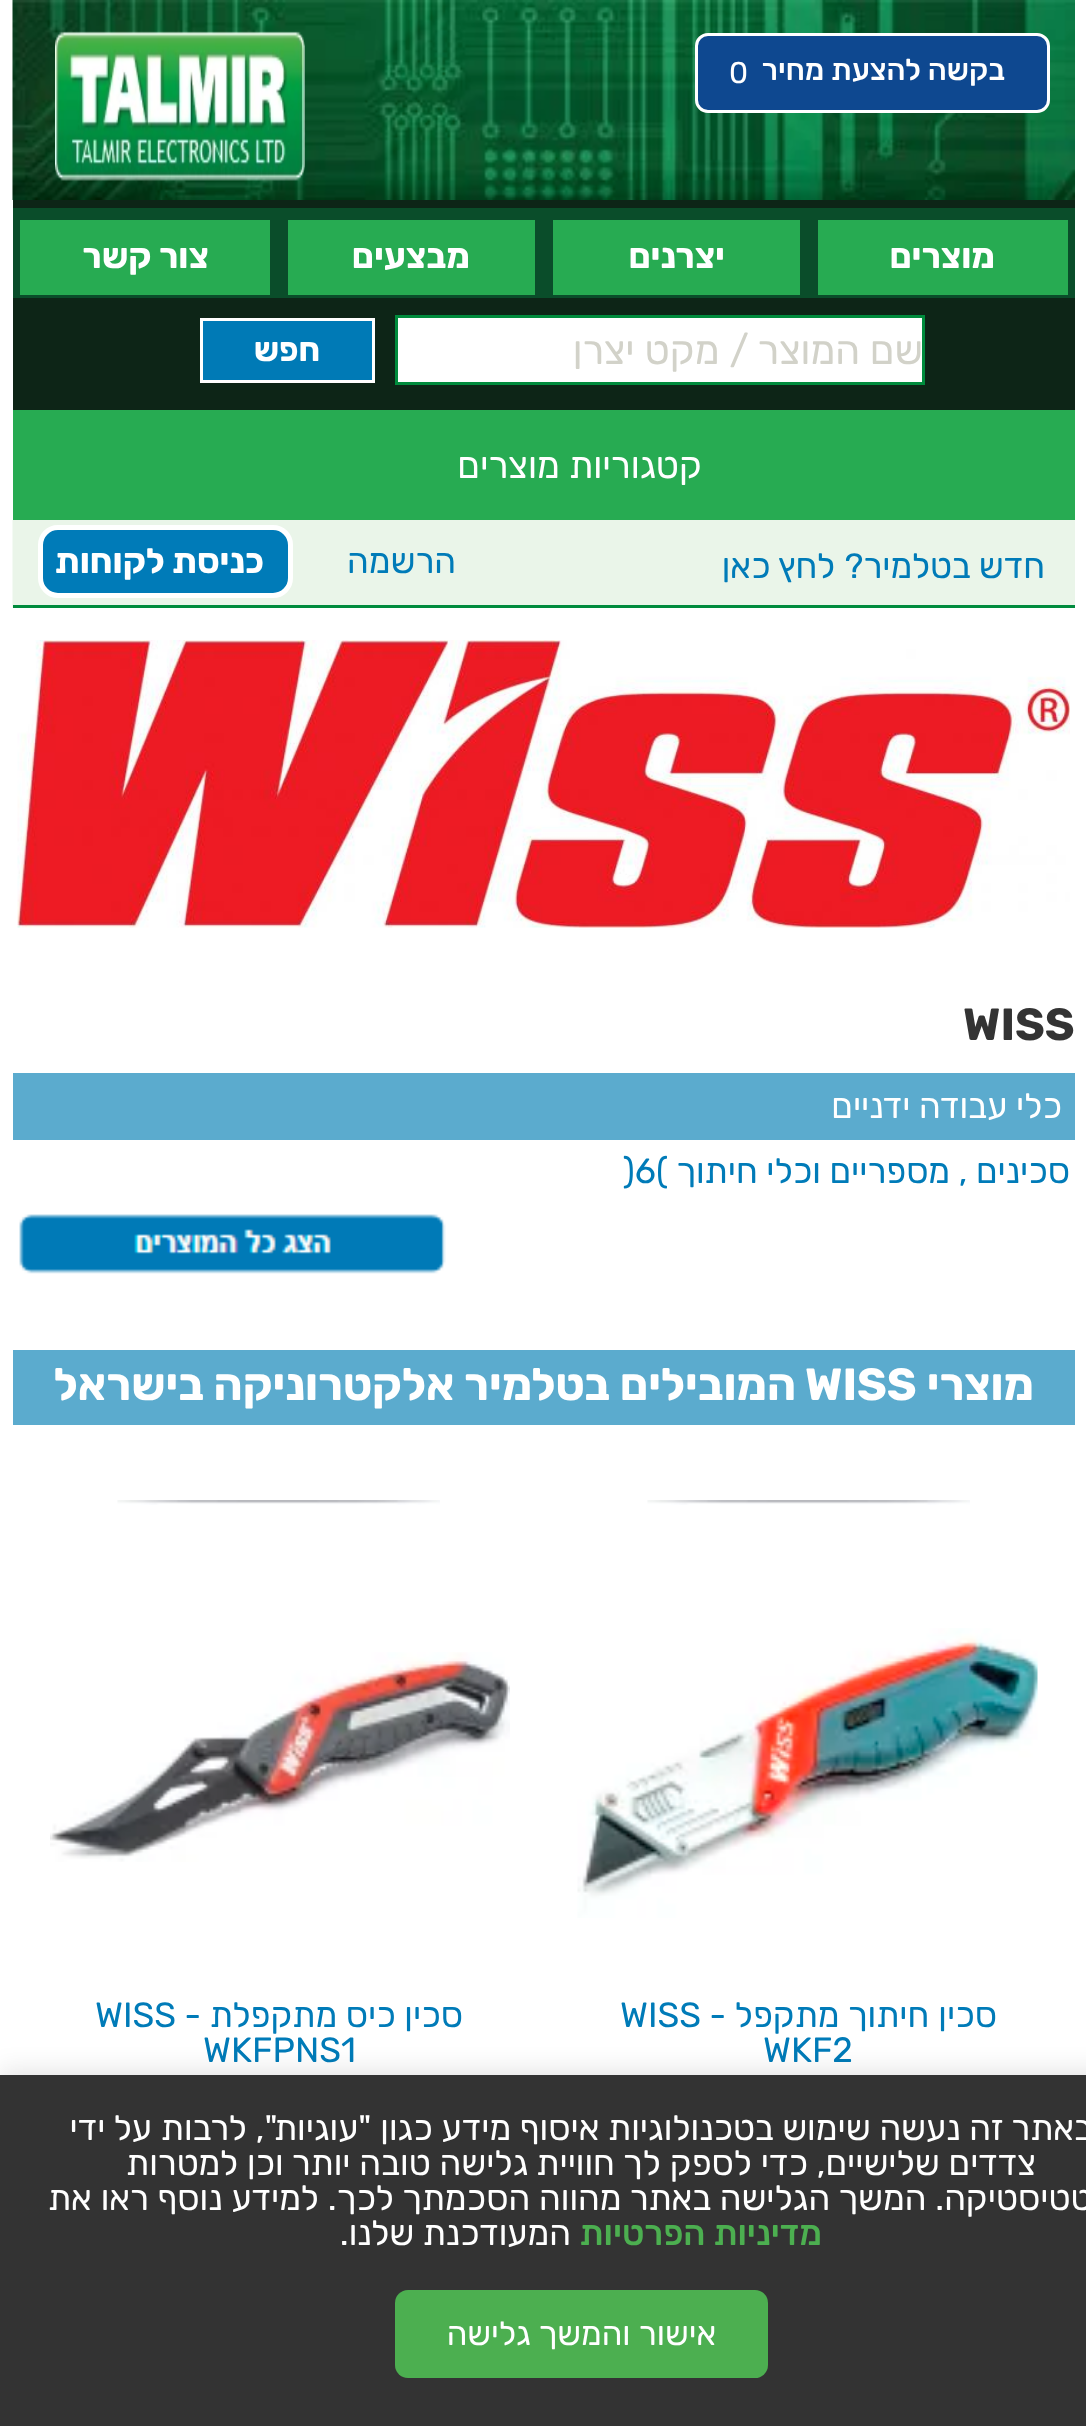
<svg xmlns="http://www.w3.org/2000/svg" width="1086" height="2426">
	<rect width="100%" height="100%" fill="#FFFFFF" />
	<rect x="13" y="200" width="1062" height="210" fill="#0D2517" />
	<image x="12" y="0" width="1063" height="200" href="assets/img1.png" />
	<rect x="696.5" y="34.5" width="352" height="77" rx="11.5" fill="#0E4890" stroke="#FFFFFF" stroke-width="3" />
	<text x="1005" y="80" font-family="Rubik" font-size="30" font-weight="500" direction="rtl" fill="#FFFFFF">בקשה להצעת מחיר</text>
	<text x="729" y="83" font-family="Rubik" font-size="30" fill="#FFFFFF">0</text>
	<image x="55" y="31" width="250" height="150" href="assets/img2.png" />
	<rect x="13" y="208" width="1062" height="90" fill="#0A4D2A" />
	<rect x="818" y="220" width="250" height="75" fill="#27AB52" />
	<text x="995" y="268" font-family="Rubik" font-size="35" font-weight="700" direction="rtl" fill="#FFFFFF">מוצרים</text>
	<rect x="553" y="220" width="247" height="75" fill="#27AB52" />
	<text x="725" y="268" font-family="Rubik" font-size="35" font-weight="700" direction="rtl" fill="#FFFFFF">יצרנים</text>
	<rect x="288" y="220" width="247" height="75" fill="#27AB52" />
	<text x="470" y="268" font-family="Rubik" font-size="35" font-weight="700" direction="rtl" fill="#FFFFFF">מבצעים</text>
	<rect x="20" y="220" width="250" height="75" fill="#27AB52" />
	<text x="209" y="268" font-family="Rubik" font-size="35" font-weight="700" direction="rtl" fill="#FFFFFF">צור קשר</text>
	<rect x="396.5" y="316.5" width="527" height="67" fill="#FFFFFF" stroke="#008B3D" stroke-width="3" />
	<text x="923" y="364" font-family="Rubik" font-size="40" direction="rtl" fill="#D2D2C9">שם המוצר / מקט יצרן</text>
	<rect x="201.5" y="319.5" width="172" height="62" fill="#007AB6" stroke="#FFFFFF" stroke-width="3" />
	<text x="320" y="361" font-family="Rubik" font-size="33.25" font-weight="700" direction="rtl" fill="#FFFFFF">חפש</text>
	<rect x="13" y="410" width="1062" height="110" fill="#27AB52" />
	<text x="702" y="478" font-family="Rubik" font-size="36.75" direction="rtl" fill="#FFFFFF">קטגוריות מוצרים</text>
	<rect x="13" y="520" width="1062" height="85" fill="#EAF5E9" />
	<image x="12" y="520" width="1" height="88" href="assets/img3.png" />
	<rect x="13" y="605" width="1062" height="3" fill="#008B3D" />
	<g font-family="Rubik" font-size="35" direction="rtl" fill="#007BB8">
		<text x="1045" y="578">חדש בטלמיר?</text>
		<text x="835" y="578">לחץ כאן</text>
		<text x="456" y="573">הרשמה</text>
	</g>
	<rect x="40.5" y="527.5" width="250" height="68" rx="17.5" fill="#007BB8" stroke="#FFFFFF" stroke-width="5" />
	<text x="264" y="573" font-family="Rubik" font-size="35" font-weight="700" direction="rtl" fill="#FFFFFF">כניסת לקוחות</text>
	<image x="17" y="640" width="1053" height="288" href="assets/img4.png" />
	<text x="963" y="1040" font-family="Rubik" font-size="45" font-weight="700" fill="#333333">WISS</text>
	<rect x="13" y="1073" width="1062" height="67" fill="#5BABCE" />
	<text x="1062" y="1118" font-family="Rubik" font-size="35" direction="rtl" fill="#FFFFFF">כלי עבודה ידניים</text>
	<text x="1070" y="1183" font-family="Rubik" font-size="35" direction="rtl" fill="#007BB8">סכינים , מספריים וכלי חיתוך</text>
	<text x="623" y="1183" font-family="Rubik" font-size="35" fill="#007BB8">)6(</text>
	<image x="19" y="1214" width="427" height="60" href="assets/img5.png" />
	<rect x="13" y="1350" width="1062" height="75" fill="#5BABCE" />
	<text x="1034" y="1400" font-family="Rubik" font-size="45" font-weight="700" direction="rtl" fill="#FFFFFF">מוצרי</text>
	<text x="805" y="1400" font-family="Rubik" font-size="45" font-weight="700" fill="#FFFFFF">WISS</text>
	<text x="796" y="1400" font-family="Rubik" font-size="45" font-weight="700" direction="rtl" fill="#FFFFFF">המובילים בטלמיר אלקטרוניקה בישראל</text>
	<image x="647" y="1500" width="323" height="5" href="assets/img6.png" />
	<image x="577" y="1628" width="461" height="290" href="assets/img7.png" />
	<text x="997" y="2027" word-spacing="0.5" font-family="Rubik" font-size="35" direction="rtl" fill="#007BB8">סכין חיתוך מתקפל -</text>
	<g font-family="Rubik" font-size="35" fill="#007BB8">
		<text x="620" y="2027">WISS</text>
		<text x="763" y="2062">WKF2</text>
	</g>
	<image x="117" y="1500" width="323" height="5" href="assets/img6.png" />
	<image x="50" y="1652" width="460" height="210" href="assets/img8.png" />
	<text x="463" y="2027" font-family="Rubik" font-size="35" direction="rtl" fill="#007BB8">סכין כיס מתקפלת -</text>
	<g font-family="Rubik" font-size="35" fill="#007BB8">
		<text x="95" y="2027">WISS</text>
		<text x="203" y="2062">WKFPNS1</text>
	</g>
	<rect x="0" y="2070" width="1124" height="353" fill="#000000" fill-opacity="0.1" filter="blur(12.5px)" />
	<rect x="0" y="2075" width="1086" height="351" fill="#333333" />
	<g font-family="Rubik" font-size="35" direction="rtl" fill="#FFFFFF">
		<text x="1093" y="2140" word-spacing="0.25">באתר זה נעשה שימוש בטכנולוגיות איסוף מידע כגון "עוגיות", לרבות על ידי</text>
		<text x="1036" y="2175" word-spacing="0.25">צדדים שלישיים, כדי לספק לך חוויית גלישה טובה יותר וכן למטרות</text>
		<text x="1115" y="2210" word-spacing="0.4">סטטיסטיקה. המשך הגלישה באתר מהווה הסכמתך לכך. למידע נוסף ראו את</text>
	</g>
	<text x="822" y="2245" font-family="Rubik" font-size="35" font-weight="500" direction="rtl" fill="#4CAF50">מדיניות הפרטיות</text>
	<text x="571" y="2245" font-family="Rubik" font-size="35" direction="rtl" fill="#FFFFFF">המעודכנת שלנו.</text>
	<rect x="395" y="2290" width="373" height="88" rx="13" fill="#4CAF50" />
	<text x="716" y="2345" word-spacing="1" font-family="Rubik" font-size="33.25" direction="rtl" fill="#FFFFFF">אישור והמשך גלישה</text>
</svg>
